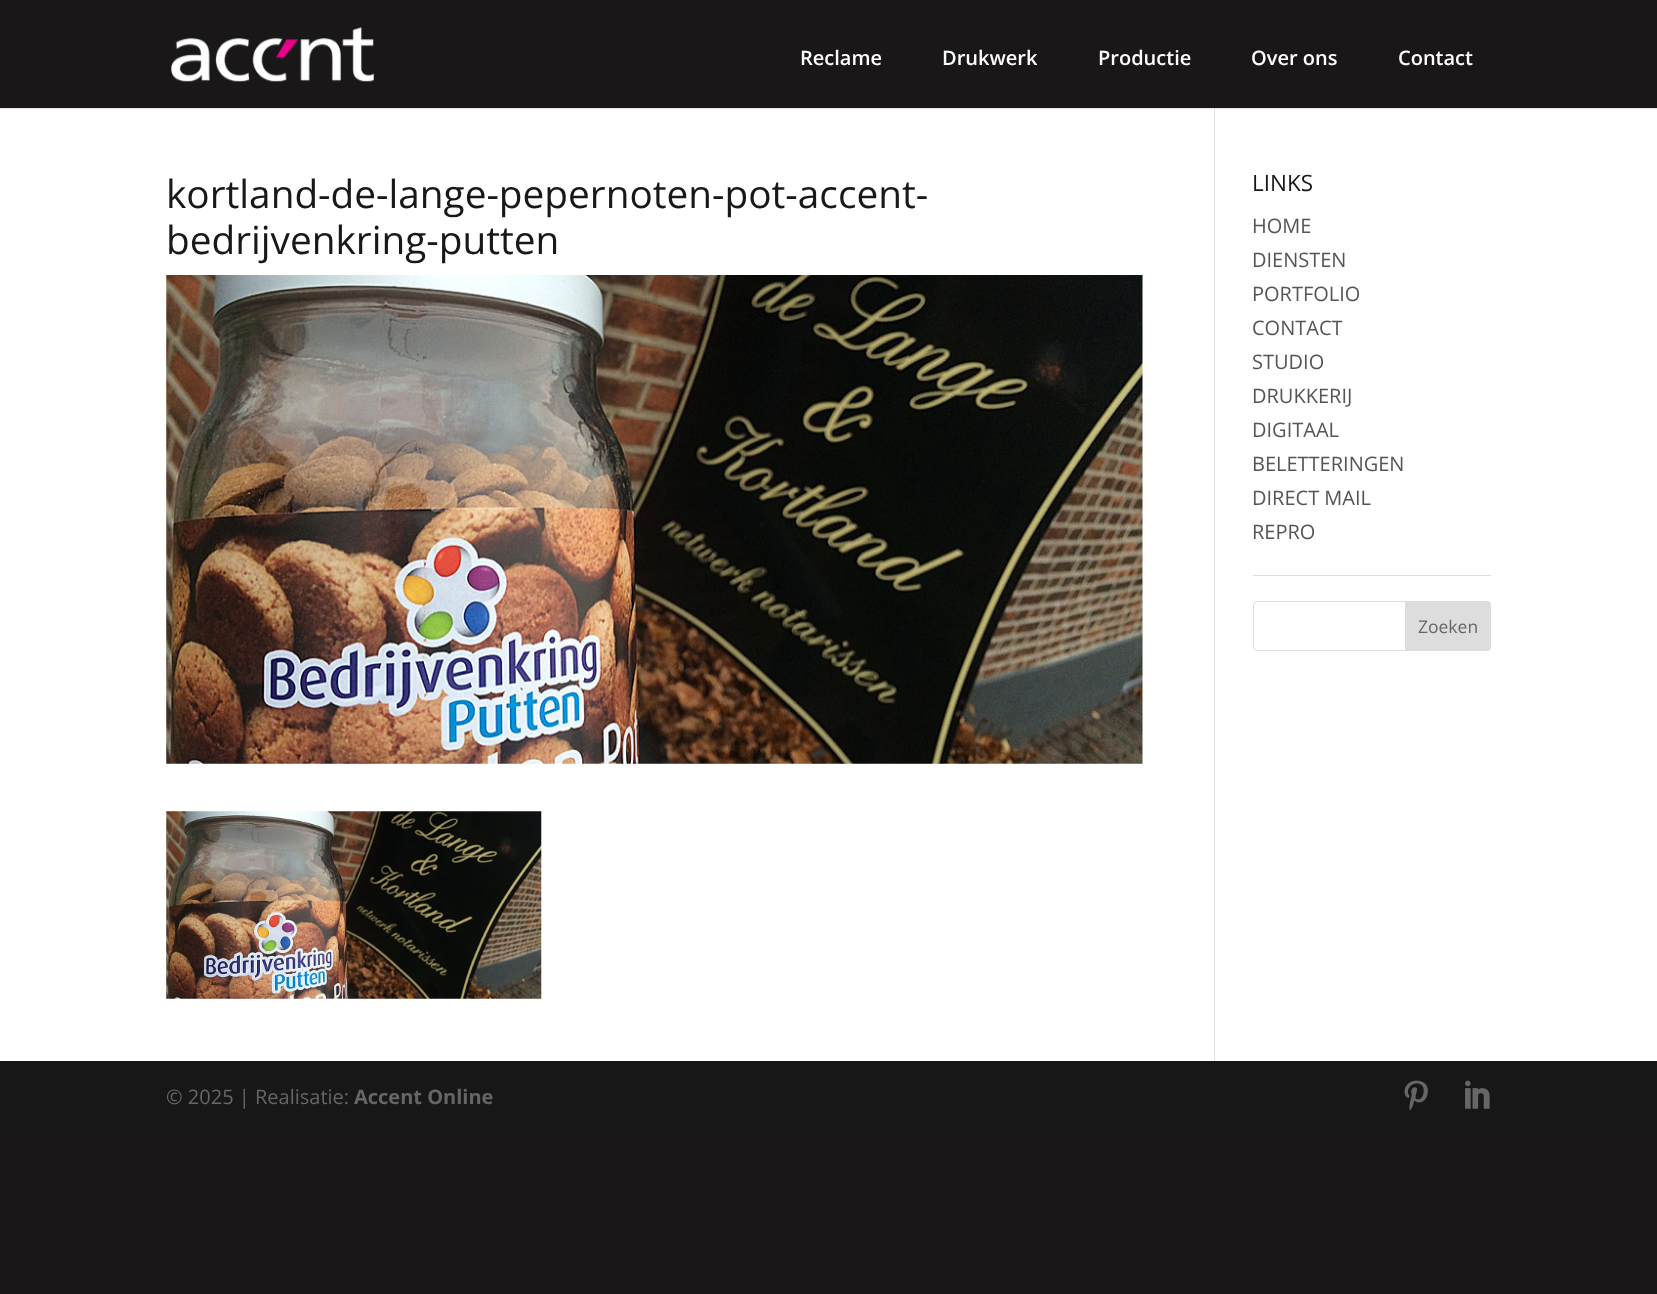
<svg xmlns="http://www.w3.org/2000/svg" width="1657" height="1294">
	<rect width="100%" height="100%" fill="#1A1718" />
	<rect x="0" y="108" width="1657" height="953" fill="#FFFFFF" />
	<rect x="1214" y="108" width="1" height="953" fill="#E2E2E2" />
	<path d="M0 108V109H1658V1V108Z" fill="#000000" fill-opacity="0.1" />
	<image x="171" y="27" width="203" height="55" href="assets/img1.png" />
	<g font-family="Open Sans" font-size="20" font-weight="600" fill="#FFFFFF">
		<text x="800" y="65">Reclame</text>
		<text x="942" y="65">Drukwerk</text>
		<text x="1098" y="65">Productie</text>
		<text x="1251" y="65">Over ons</text>
		<text x="1398" y="65">Contact</text>
	</g>
	<g font-family="Open Sans" font-size="38.75" fill="#1A1718">
		<text x="166" y="208">kortland-de-lange-pepernoten-pot-accent-</text>
		<text x="166" y="254">bedrijvenkring-putten</text>
	</g>
	<image x="166" y="275" width="977" height="489" href="assets/img2.png" />
	<image x="166" y="811" width="376" height="188" href="assets/img3.png" />
	<rect x="1253" y="575" width="238" height="1" fill="#DDDDDD" />
	<text x="1252" y="191" font-family="Open Sans" font-size="22.5" fill="#1A1718">LINKS</text>
	<g font-family="Open Sans" font-size="20" fill="#555555">
		<text x="1252" y="233">HOME</text>
		<text x="1252" y="267">DIENSTEN</text>
		<text x="1252" y="301">PORTFOLIO</text>
		<text x="1252" y="335">CONTACT</text>
		<text x="1252" y="369">STUDIO</text>
		<text x="1252" y="403">DRUKKERIJ</text>
		<text x="1252" y="437">DIGITAAL</text>
		<text x="1252" y="471">BELETTERINGEN</text>
		<text x="1252" y="505">DIRECT MAIL</text>
		<text x="1252" y="539">REPRO</text>
	</g>
	<rect x="1253.5" y="601.5" width="237" height="49" rx="3.5" fill="none" stroke="#DDDDDD" />
	<path d="M1405.5 601.5H1487C1489 601.5 1490.5 603 1490.5 605V647C1490.5 649 1489 650.5 1487 650.5H1405.5Z" fill="#DDDDDD" stroke="#DDDDDD" />
	<text x="1418" y="633" font-family="Open Sans" font-size="17.5" fill="#666666">Zoeken</text>
	<rect x="0" y="1061" width="1657" height="72" fill="#171717" />
	<text x="166" y="1104" font-family="Open Sans" font-size="20" fill="#666666">© 2025 | Realisatie:</text>
	<text x="354" y="1104" font-family="Open Sans" font-size="20" font-weight="700" fill="#666666">Accent Online</text>
	<image x="1404" y="1080" width="24" height="31" href="assets/img4.png" />
	<image x="1465" y="1080" width="25" height="29" href="assets/img5.png" />
</svg>
